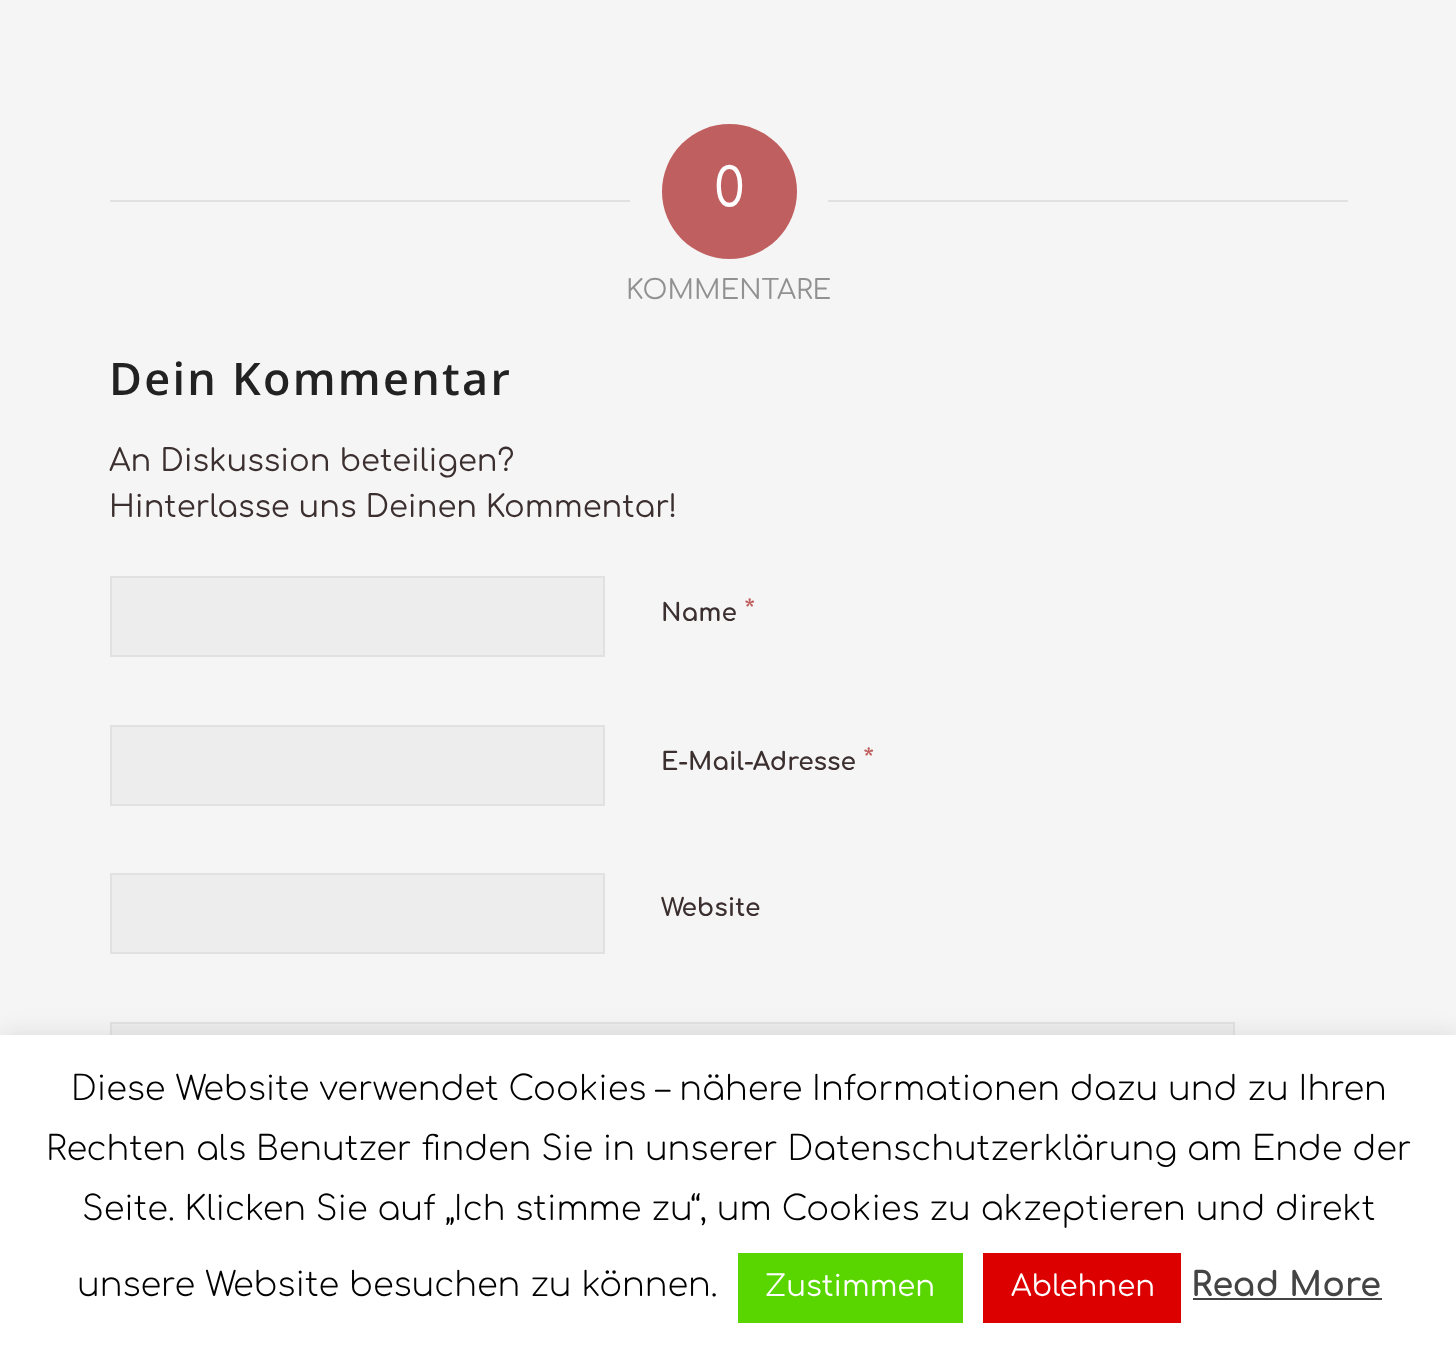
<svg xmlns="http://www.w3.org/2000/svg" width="1456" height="1348">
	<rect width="100%" height="100%" fill="#F5F5F5" />
	<rect x="110" y="200" width="520" height="2" fill="#E1E1E1" />
	<circle cx="729.5" cy="191.5" r="67.5" fill="#C05F5F" />
	<text x="714" y="207" font-family="Comfortaa" font-size="54" fill="#FFFFFF">0</text>
	<rect x="828" y="200" width="520" height="2" fill="#E1E1E1" />
	<text x="626" y="299" font-family="Comfortaa" font-size="27" fill="#919191">KOMMENTARE</text>
	<text x="109" y="395" font-family="Open Sans" font-size="45" font-weight="600" letter-spacing="2.25" fill="#222222">Dein Kommentar</text>
	<g font-family="Comfortaa" font-size="30.6" fill="#3B2F2F">
		<text x="109" y="471">An Diskussion beteiligen?</text>
		<text x="109" y="517">Hinterlasse uns Deinen Kommentar!</text>
	</g>
	<rect x="111" y="577" width="493" height="79" fill="#EDEDED" stroke="#E1E1E1" stroke-width="2" />
	<text x="661" y="621" font-family="Comfortaa" font-size="24.75" font-weight="700" fill="#3B2F2F">Name</text>
	<text x="744" y="621" font-family="Comfortaa" font-size="29.25" fill="#C05F5F">*</text>
	<rect x="111" y="726" width="493" height="79" fill="#EDEDED" stroke="#E1E1E1" stroke-width="2" />
	<text x="661" y="770" font-family="Comfortaa" font-size="24.75" font-weight="700" fill="#3B2F2F">E-Mail-Adresse</text>
	<text x="863" y="770" font-family="Comfortaa" font-size="29.25" fill="#C05F5F">*</text>
	<rect x="111" y="874" width="493" height="79" fill="#EDEDED" stroke="#E1E1E1" stroke-width="2" />
	<text x="661" y="916" font-family="Comfortaa" font-size="24.75" font-weight="700" fill="#3B2F2F">Website</text>
	<rect x="112" y="1024" width="1121" height="11" fill="#EDEDED" />
	<rect x="111" y="1023" width="1123" height="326" fill="none" stroke="#E1E1E1" stroke-width="2" />
	<rect x="0" y="1033" width="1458" height="315" fill="#ACABAB" fill-opacity="0.3" filter="blur(11px)" />
	<rect x="0" y="1035" width="1456" height="313" fill="#FFFFFF" />
	<g font-family="Comfortaa" font-size="33.75" font-weight="300" fill="#000000">
		<text x="71" y="1100">Diese Website verwendet Cookies – nähere Informationen dazu und zu Ihren</text>
		<text x="46" y="1160">Rechten als Benutzer finden Sie in unserer Datenschutzerklärung am Ende der</text>
		<text x="82" y="1220">Seite. Klicken Sie auf „Ich stimme zu“, um Cookies zu akzeptieren und direkt</text>
		<text x="77" y="1296">unsere Website besuchen zu können.</text>
	</g>
	<rect x="738" y="1253" width="225" height="70" fill="#59D600" />
	<text x="765" y="1296" font-family="Comfortaa" font-size="29.25" fill="#FFFFFF">Zustimmen</text>
	<rect x="983" y="1253" width="198" height="70" fill="#DD0000" />
	<text x="1011" y="1296" font-family="Comfortaa" font-size="29.25" fill="#FFFFFF">Ablehnen</text>
	<text x="1191" y="1296" font-family="Comfortaa" font-size="33.75" font-weight="700" fill="#444444">Read More</text>
	<rect x="1193" y="1298" width="189" height="2" fill="#444444" />
</svg>
